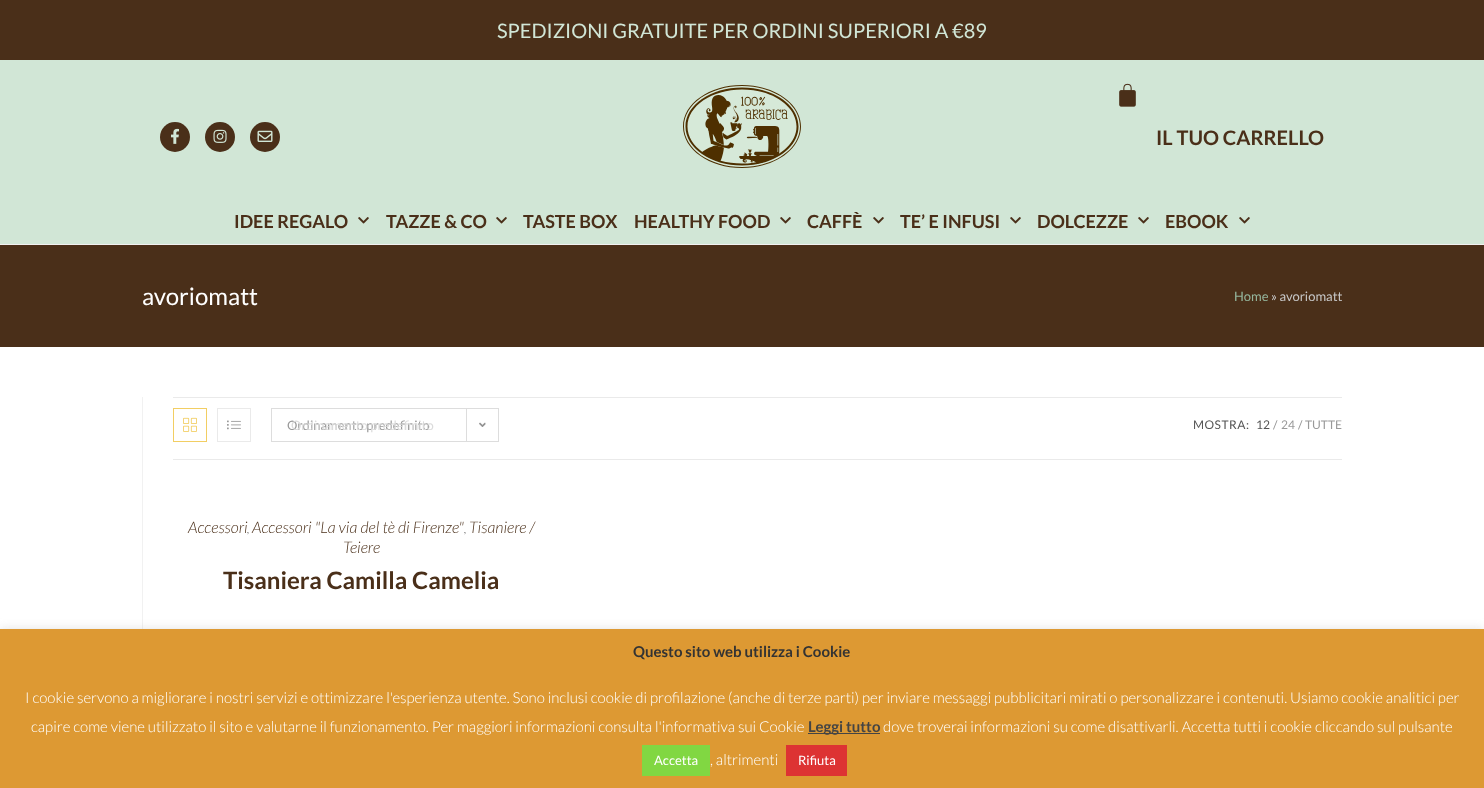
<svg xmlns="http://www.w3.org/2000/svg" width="1484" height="788">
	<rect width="100%" height="100%" fill="#FFFFFF" />
	<rect x="0" y="244" width="1484" height="1" fill="#F1F1F1" />
	<rect x="0" y="0" width="1484" height="60" fill="#4A2F19" />
	<text x="497" y="38" font-family="Lato" font-size="20" fill="#D1E6D6">SPEDIZIONI GRATUITE PER ORDINI SUPERIORI A €89</text>
	<rect x="0" y="60" width="1484" height="184" fill="#D1E6D6" />
	<circle cx="175" cy="137" r="15" fill="#4A2F19" />
	<image x="171" y="128" width="8" height="16" href="assets/img1.png" />
	<circle cx="220" cy="137" r="15" fill="#4A2F19" />
	<image x="213" y="129" width="14" height="14" href="assets/img2.png" />
	<circle cx="265" cy="137" r="15" fill="#4A2F19" />
	<image x="257" y="130" width="16" height="12" href="assets/img3.png" />
	<image x="683" y="85" width="118" height="83" href="assets/img4.png" />
	<image x="1119" y="83" width="17" height="24" href="assets/img5.png" />
	<text x="1156" y="145" font-family="Lato" font-size="20" font-weight="700" fill="#4A2F19">IL TUO CARRELLO</text>
	<text x="234" y="228" font-family="Lato" font-size="18" font-weight="700" fill="#4A2F19">IDEE REGALO</text>
	<image x="358" y="217" width="11" height="7" href="assets/img6.png" />
	<text x="386" y="228" font-family="Lato" font-size="18" font-weight="700" fill="#4A2F19">TAZZE &amp; CO</text>
	<image x="496" y="217" width="11" height="7" href="assets/img6.png" />
	<g font-family="Lato" font-size="18" font-weight="700" fill="#4A2F19">
		<text x="523" y="228">TASTE BOX</text>
		<text x="634" y="228">HEALTHY FOOD</text>
	</g>
	<image x="780" y="217" width="11" height="7" href="assets/img6.png" />
	<text x="807" y="228" font-family="Lato" font-size="18" font-weight="700" fill="#4A2F19">CAFFÈ</text>
	<image x="873" y="217" width="11" height="7" href="assets/img6.png" />
	<text x="900" y="228" font-family="Lato" font-size="18" font-weight="700" fill="#4A2F19">TE’ E INFUSI</text>
	<image x="1010" y="217" width="11" height="7" href="assets/img6.png" />
	<text x="1037" y="228" font-family="Lato" font-size="18" font-weight="700" fill="#4A2F19">DOLCEZZE</text>
	<image x="1138" y="217" width="11" height="7" href="assets/img6.png" />
	<text x="1165" y="228" font-family="Lato" font-size="18" font-weight="700" fill="#4A2F19">EBOOK</text>
	<image x="1239" y="217" width="11" height="7" href="assets/img6.png" />
	<rect x="0" y="245" width="1484" height="102" fill="#4A2F19" />
	<text x="142" y="305" font-family="Lato" font-size="24" fill="#FFFFFF">avoriomatt</text>
	<text x="1234" y="301" font-family="Lato" font-size="13" fill="#94B59C">Home</text>
	<text x="1271" y="301" font-family="Lato" font-size="13" fill="#C6C6C6">» avoriomatt</text>
	<rect x="142" y="397" width="1" height="232" fill="#F1F1F1" />
	<rect x="173" y="397" width="1169" height="1" fill="#EAEAEA" />
	<rect x="173" y="459" width="1169" height="1" fill="#EAEAEA" />
	<rect x="173.5" y="408.5" width="33" height="33" fill="none" stroke="#F2CE63" />
	<image x="183" y="417" width="14" height="15" href="assets/img7.png" />
	<rect x="217.5" y="408.5" width="33" height="33" fill="none" stroke="#EAEAEA" />
	<image x="227" y="420" width="14" height="10" href="assets/img8.png" />
	<rect x="271.5" y="408.5" width="227" height="33" fill="none" stroke="#DDDDDD" />
	<text x="287" y="430" font-family="Lato" font-size="13" fill="#999999">Ordinamento predefinito</text>
	<rect x="466" y="409" width="1" height="32" fill="#DDDDDD" />
	<image x="479" y="422" width="7" height="5" href="assets/img9.png" />
	<path d="M486 423L490 427L494 423" fill="none" stroke="#FFFFFF" stroke-width="2" />
	<text x="291" y="430" font-family="Lato" font-size="13" fill="#DBDBDB">Ordinamento predefinito</text>
	<text x="1193" y="429" font-family="Lato" font-size="12" letter-spacing="0.5" fill="#555555">MOSTRA:</text>
	<text x="1256" y="429" font-family="Lato" font-size="12" fill="#555555">12</text>
	<g font-family="Lato" font-size="12" fill="#999999">
		<text x="1273" y="429">/</text>
		<text x="1281" y="429">24</text>
		<text x="1298" y="429">/</text>
		<text x="1305" y="429">TUTTE</text>
	</g>
	<text x="188" y="533" font-family="Lato" font-size="16" font-weight="300" font-style="italic" fill="#4A2F19">Accessori</text>
	<text x="247" y="533" font-family="Lato" font-size="12" font-weight="300" font-style="italic" fill="#4A4A4A">,</text>
	<text x="252" y="533" font-family="Lato" font-size="16" font-weight="300" font-style="italic" fill="#4A2F19">Accessori "La via del tè di Firenze"</text>
	<text x="464" y="533" font-family="Lato" font-size="12" font-weight="300" font-style="italic" fill="#4A4A4A">,</text>
	<g font-family="Lato" font-size="16" font-weight="300" font-style="italic" fill="#4A2F19">
		<text x="469" y="533">Tisaniere /</text>
		<text x="343" y="553">Teiere</text>
	</g>
	<text x="223" y="589" font-family="Lato" font-size="24" font-weight="700" fill="#4A2F19">Tisaniera Camilla Camelia</text>
	<rect x="0" y="628" width="1484" height="159" fill="#ACABAB" fill-opacity="0.3" filter="blur(5px)" />
	<rect x="0" y="629" width="1484" height="159" fill="#DD9933" />
	<text x="633" y="657" font-family="Lato" font-size="15" font-weight="700" fill="#333333">Questo sito web utilizza i Cookie</text>
	<g font-family="Lato" font-size="15" font-weight="300" fill="#FFFFFF">
		<text x="25" y="703">I cookie servono a migliorare i nostri servizi e ottimizzare l'esperienza utente. Sono inclusi cookie di profilazione (anche di terze parti) per inviare messaggi pubblicitari mirati o personalizzare i contenuti. Usiamo cookie analitici per</text>
		<text x="31" y="732">capire come viene utilizzato il sito e valutarne il funzionamento. Per maggiori informazioni consulta l'informativa sui Cookie</text>
	</g>
	<rect x="808" y="733" width="72" height="1" fill="#444444" />
	<text x="808" y="732" font-family="Lato" font-size="15" font-weight="700" fill="#444444">Leggi tutto</text>
	<text x="883" y="732" font-family="Lato" font-size="15" font-weight="300" fill="#FFFFFF">dove troverai informazioni su come disattivarli. Accetta tutti i cookie cliccando sul pulsante</text>
	<rect x="642" y="745" width="68" height="31" fill="#81D742" />
	<text x="654" y="765" font-family="Lato" font-size="13" fill="#FFFFFF">Accetta</text>
	<text x="710" y="765" font-family="Lato" font-size="15" font-weight="300" fill="#FFFFFF">, altrimenti</text>
	<rect x="786" y="745" width="61" height="31" fill="#DD3333" />
	<text x="798" y="765" font-family="Lato" font-size="13" fill="#FFFFFF">Rifiuta</text>
</svg>
